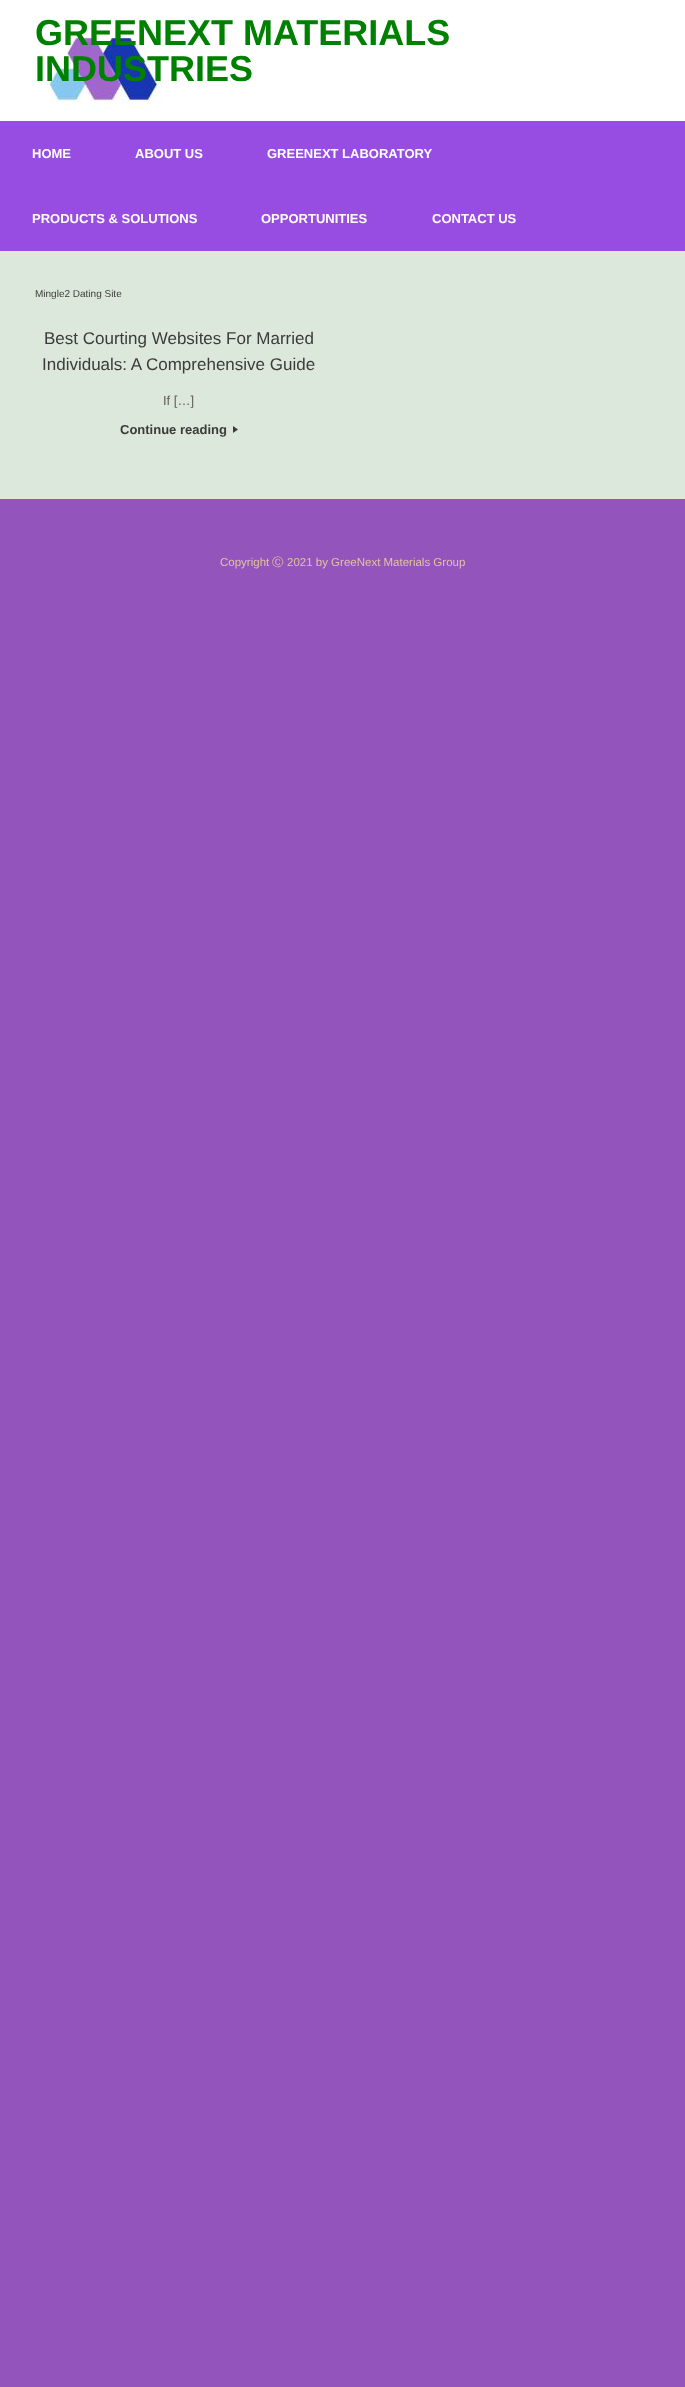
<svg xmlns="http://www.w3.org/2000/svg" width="685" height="2387">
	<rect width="100%" height="100%" fill="#9354BC" />
	<rect x="0" y="0" width="685" height="121" fill="#FFFFFF" />
	<image x="47" y="30" width="116" height="80" href="assets/img1.png" />
	<g font-family="Liberation Sans" font-size="36" font-weight="700" fill="#008000">
		<text x="35" y="45">GREENEXT MATERIALS</text>
		<text x="35" y="81">INDUSTRIES</text>
	</g>
	<rect x="0" y="121" width="685" height="130" fill="#984DE2" />
	<g font-family="Liberation Sans" font-size="13" font-weight="700" fill="#FFFFFF">
		<text x="32" y="158">HOME</text>
		<text x="135" y="158">ABOUT US</text>
		<text x="267" y="158">GREENEXT LABORATORY</text>
		<text x="32" y="223">PRODUCTS &amp; SOLUTIONS</text>
		<text x="261" y="223">OPPORTUNITIES</text>
		<text x="432" y="223">CONTACT US</text>
	</g>
	<rect x="0" y="251" width="685" height="248" fill="#DCE8DC" />
	<text x="35" y="297" font-family="Liberation Sans" font-size="10" fill="#3B3B3B">Mingle2 Dating Site</text>
	<g font-family="Liberation Sans" font-size="17" fill="#3B3B3B">
		<text x="44" y="344">Best Courting Websites For Married</text>
		<text x="42" y="370">Individuals: A Comprehensive Guide</text>
	</g>
	<text x="163" y="405" font-family="Liberation Sans" font-size="13" fill="#5E5E5E">If […]</text>
	<text x="120" y="434" font-family="Liberation Sans" font-size="13" font-weight="700" fill="#3B3B3B">Continue reading</text>
	<image x="233" y="426" width="5" height="7" href="assets/img2.png" />
	<text x="220" y="566" font-family="Liberation Sans" font-size="11.5" fill="#E2C2A3">Copyright</text>
	<text x="272" y="566" font-family="WenQuanYi Zen Hei" font-size="11.5" font-weight="500" fill="#E2C2A3">Ⓒ</text>
	<text x="287" y="566" font-family="Liberation Sans" font-size="11.5" fill="#E2C2A3">2021 by GreeNext Materials Group</text>
</svg>
